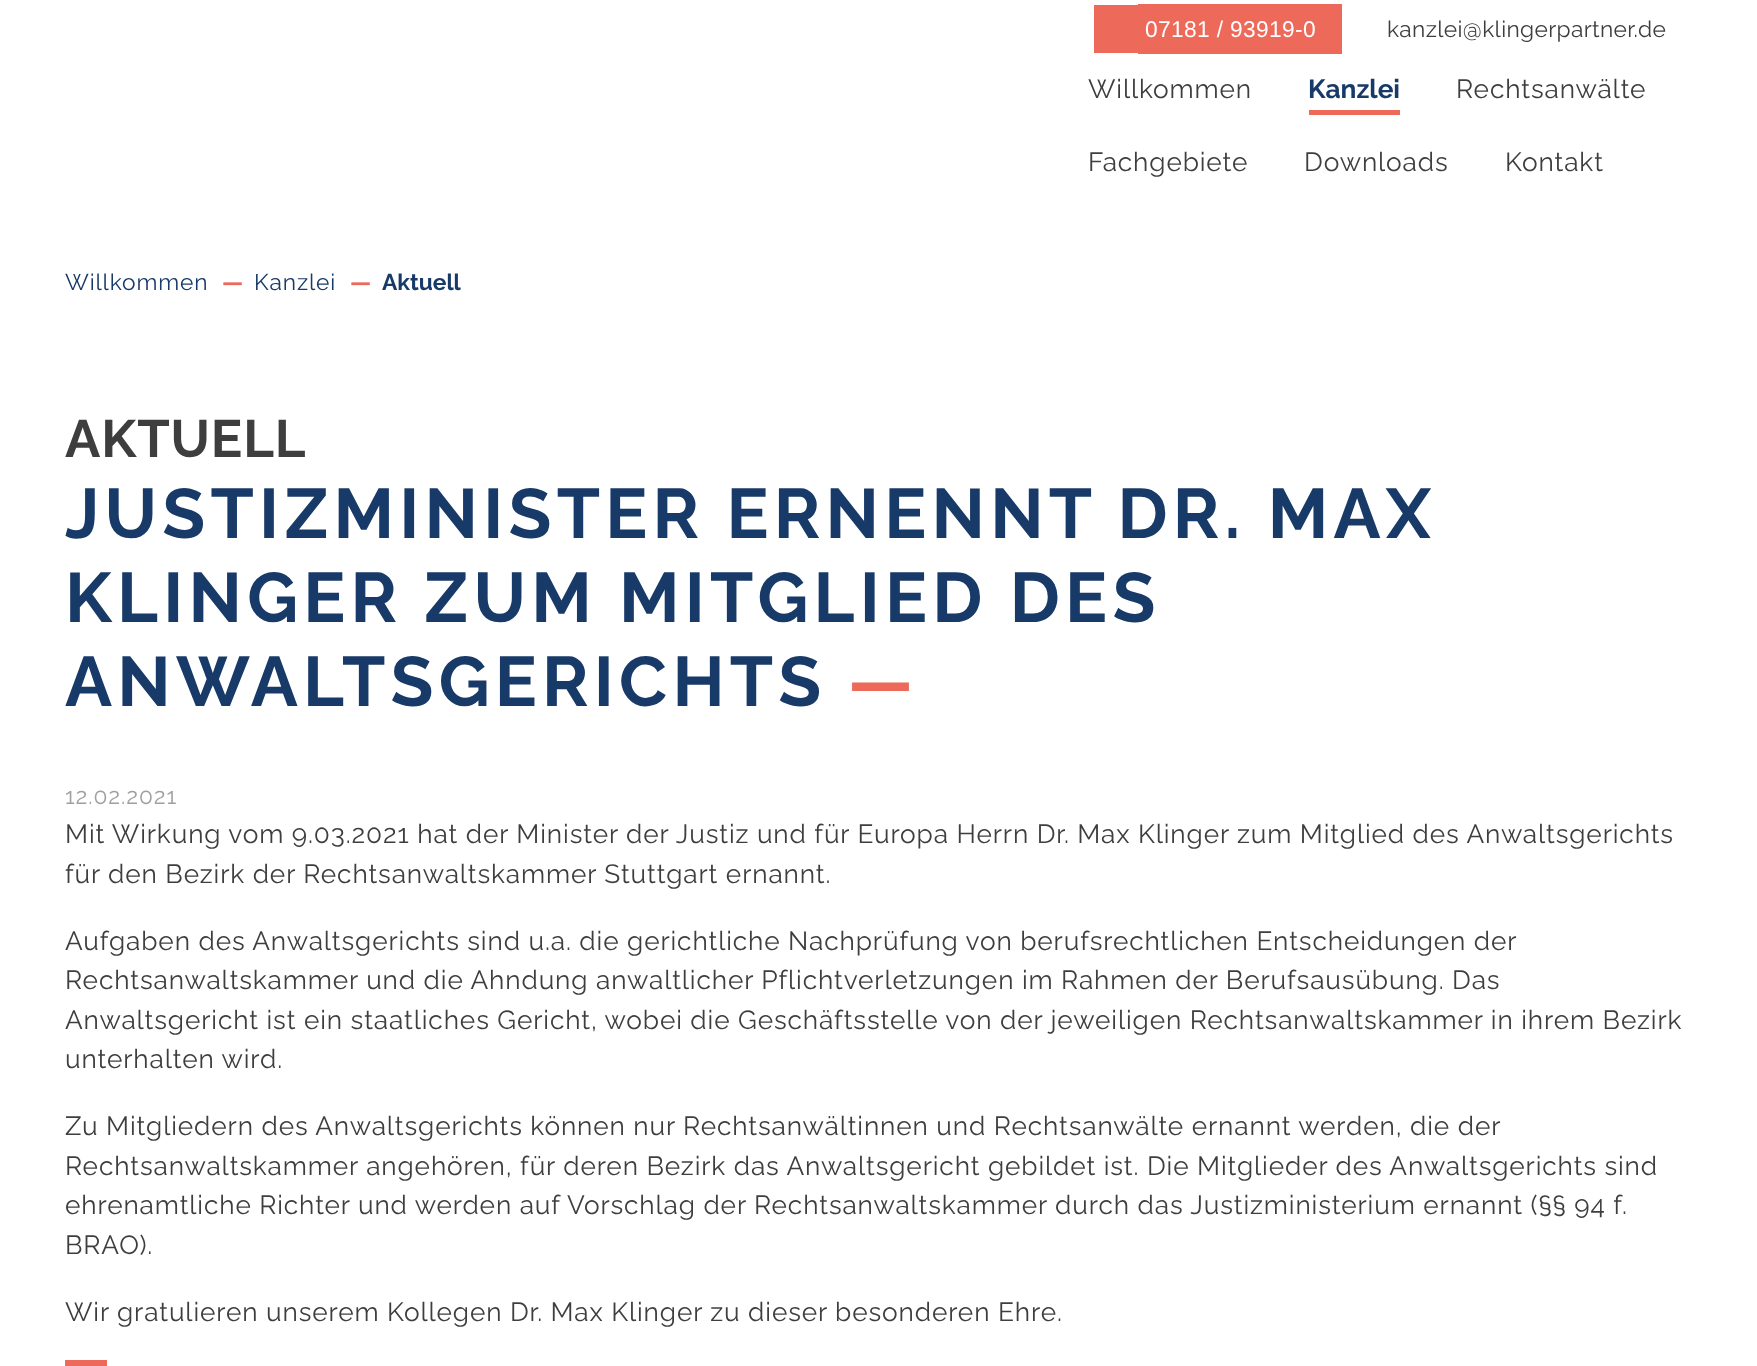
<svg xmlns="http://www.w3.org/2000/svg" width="1757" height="1366">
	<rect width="100%" height="100%" fill="#FFFFFF" />
	<rect x="1138" y="4" width="204" height="50" fill="#ED6A5B" />
	<text x="1145" y="37" font-family="Liberation Sans" font-size="22.75" letter-spacing="0.35" fill="#FFFFFF">07181 / 93919-0</text>
	<rect x="1094" y="5" width="44" height="48" fill="#ED6A5B" />
	<text x="1387" y="37" font-family="Raleway" font-size="22.75" letter-spacing="0.35" fill="#3E3E3E">kanzlei@klingerpartner.de</text>
	<text x="1088" y="98" font-family="Raleway" font-size="26.25" letter-spacing="0.88" fill="#3E3E3E">Willkommen</text>
	<text x="1308" y="98" font-family="Raleway" font-size="26.25" font-weight="700" fill="#183A68">Kanzlei</text>
	<rect x="1309" y="110" width="91" height="5" fill="#ED6A5B" />
	<g font-family="Raleway" font-size="26.25" letter-spacing="0.88" fill="#3E3E3E">
		<text x="1456" y="98">Rechtsanwälte</text>
		<text x="1088" y="171">Fachgebiete</text>
		<text x="1304" y="171">Downloads</text>
		<text x="1505" y="171">Kontakt</text>
	</g>
	<text x="65" y="290" font-family="Raleway" font-size="22.75" letter-spacing="0.88" fill="#183A68">Willkommen</text>
	<text x="222" y="290" font-family="Raleway" font-size="22.75" font-weight="700" fill="#ED6A5B">—</text>
	<text x="254" y="290" font-family="Raleway" font-size="22.75" letter-spacing="0.88" fill="#183A68">Kanzlei</text>
	<text x="350" y="290" font-family="Raleway" font-size="22.75" font-weight="700" fill="#ED6A5B">—</text>
	<text x="382" y="290" font-family="Raleway" font-size="22.75" font-weight="700" fill="#183A68">Aktuell</text>
	<text x="65" y="457" font-family="Raleway" font-size="52.5" font-weight="700" letter-spacing="0.88" fill="#3E3E3E">AKTUELL</text>
	<g font-family="Raleway" font-size="70" font-weight="700" letter-spacing="5.25" fill="#183A68">
		<text x="65" y="538">JUSTIZMINISTER ERNENNT DR. MAX</text>
		<text x="65" y="622">KLINGER ZUM MITGLIED DES</text>
		<text x="65" y="706">ANWALTSGERICHTS</text>
	</g>
	<text x="848" y="706" font-family="Raleway" font-size="70" font-weight="700" letter-spacing="5.25" fill="#ED6A5B">—</text>
	<text x="65" y="804" font-family="Raleway" font-size="22.75" letter-spacing="0.88" fill="#A0A0A0">12.02.2021</text>
	<g font-family="Raleway" font-size="26.25" letter-spacing="0.88" fill="#3E3E3E">
		<text x="65" y="843">Mit Wirkung vom 9.03.2021 hat der Minister der Justiz und für Europa Herrn Dr. Max Klinger zum Mitglied des Anwaltsgerichts</text>
		<text x="65" y="883">für den Bezirk der Rechtsanwaltskammer Stuttgart ernannt.</text>
		<text x="65" y="950">Aufgaben des Anwaltsgerichts sind u.a. die gerichtliche Nachprüfung von berufsrechtlichen Entscheidungen der</text>
		<text x="65" y="989">Rechtsanwaltskammer und die Ahndung anwaltlicher Pflichtverletzungen im Rahmen der Berufsausübung. Das</text>
		<text x="65" y="1029">Anwaltsgericht ist ein staatliches Gericht, wobei die Geschäftsstelle von der jeweiligen Rechtsanwaltskammer in ihrem Bezirk</text>
		<text x="65" y="1068">unterhalten wird.</text>
		<text x="65" y="1135">Zu Mitgliedern des Anwaltsgerichts können nur Rechtsanwältinnen und Rechtsanwälte ernannt werden, die der</text>
		<text x="65" y="1175">Rechtsanwaltskammer angehören, für deren Bezirk das Anwaltsgericht gebildet ist. Die Mitglieder des Anwaltsgerichts sind</text>
		<text x="65" y="1214">ehrenamtliche Richter und werden auf Vorschlag der Rechtsanwaltskammer durch das Justizministerium ernannt (§§ 94 f.</text>
		<text x="65" y="1254">BRAO).</text>
		<text x="65" y="1321">Wir gratulieren unserem Kollegen Dr. Max Klinger zu dieser besonderen Ehre.</text>
	</g>
	<rect x="65" y="1360" width="42" height="6" fill="#ED6A5B" />
</svg>
